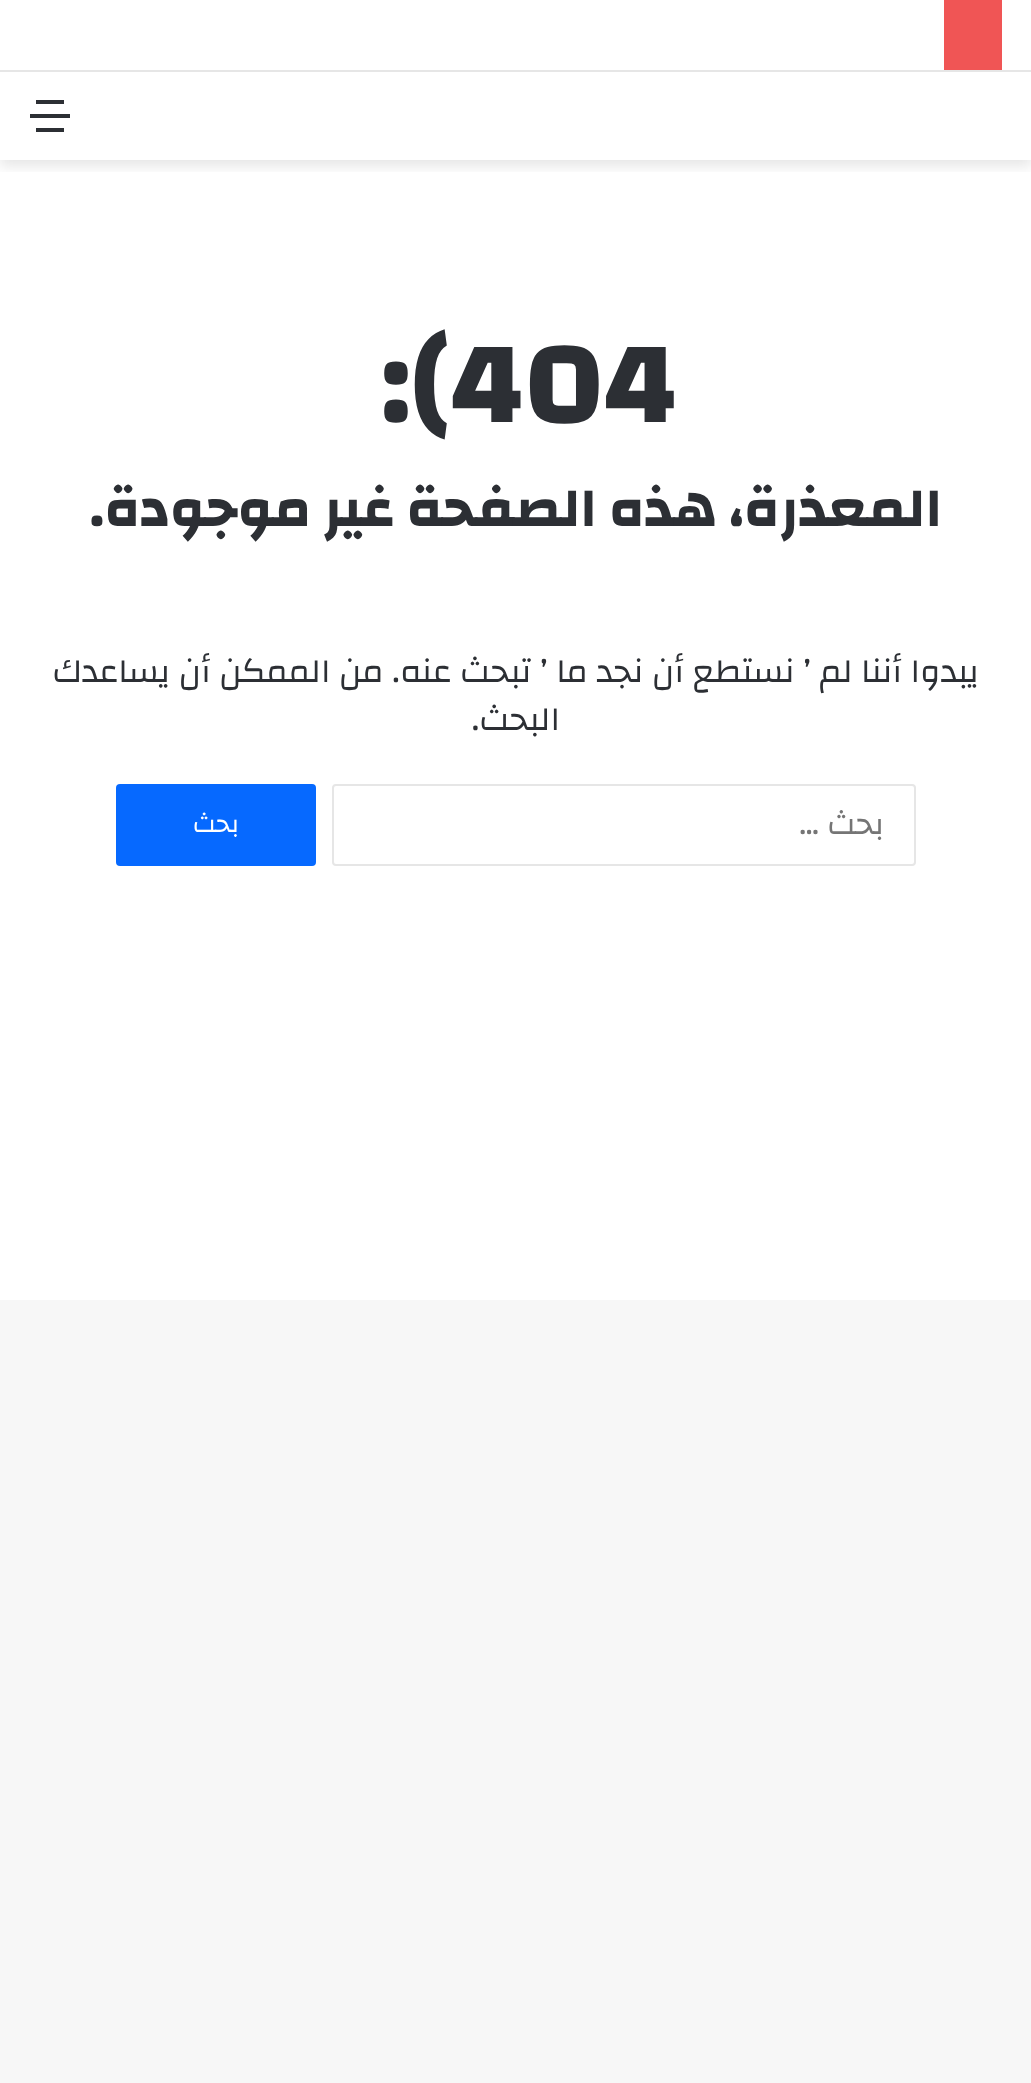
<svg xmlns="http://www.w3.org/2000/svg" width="1031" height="2083">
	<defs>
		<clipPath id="clip1"><rect x="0" y="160" width="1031" height="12" /></clipPath>
	</defs>
	<rect width="100%" height="100%" fill="#F7F7F7" />
	<rect x="0" y="72" width="1031" height="1228" fill="#FFFFFF" />
	<g clip-path="url(#clip1)">
		<rect x="0" y="78" width="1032" height="88" fill="#000000" fill-opacity="0.1" filter="blur(7px)" />
	</g>
	<rect x="0" y="0" width="1031" height="70" fill="#FFFFFF" />
	<rect x="0" y="70" width="1031" height="2" fill="#E6E6E6" />
	<rect x="944" y="0" width="58" height="70" fill="#F05555" />
	<rect x="30" y="114" width="40" height="4" fill="#2C2F34" />
	<rect x="36" y="100" width="28" height="4" fill="#2C2F34" />
	<rect x="36" y="128" width="28" height="4" fill="#2C2F34" />
	<text x="380" y="422" font-family="Changa" font-size="120" font-weight="700" fill="#2C2F34">:(404</text>
	<text x="942" y="526" font-family="Changa" font-size="56" font-weight="700" direction="rtl" fill="#2C2F34">المعذرة، هذه الصفحة غير موجودة.</text>
	<g font-family="Changa" font-size="34" direction="rtl" fill="#2C2F34">
		<text x="979" y="682">يبدوا أننا لم ’ نستطع أن نجد ما ’ تبحث عنه. من الممكن أن يساعدك</text>
		<text x="560" y="730">البحث.</text>
	</g>
	<rect x="333" y="785" width="582" height="80" rx="3" fill="none" stroke="#E6E6E6" stroke-width="2" />
	<text x="884" y="834" font-family="Changa" font-size="32" direction="rtl" fill="#757575">بحث …</text>
	<rect x="116" y="784" width="200" height="82" rx="4" fill="#0669FF" />
	<text x="239" y="832" font-family="Changa" font-size="26" direction="rtl" fill="#FFFFFF">بحث</text>
</svg>
